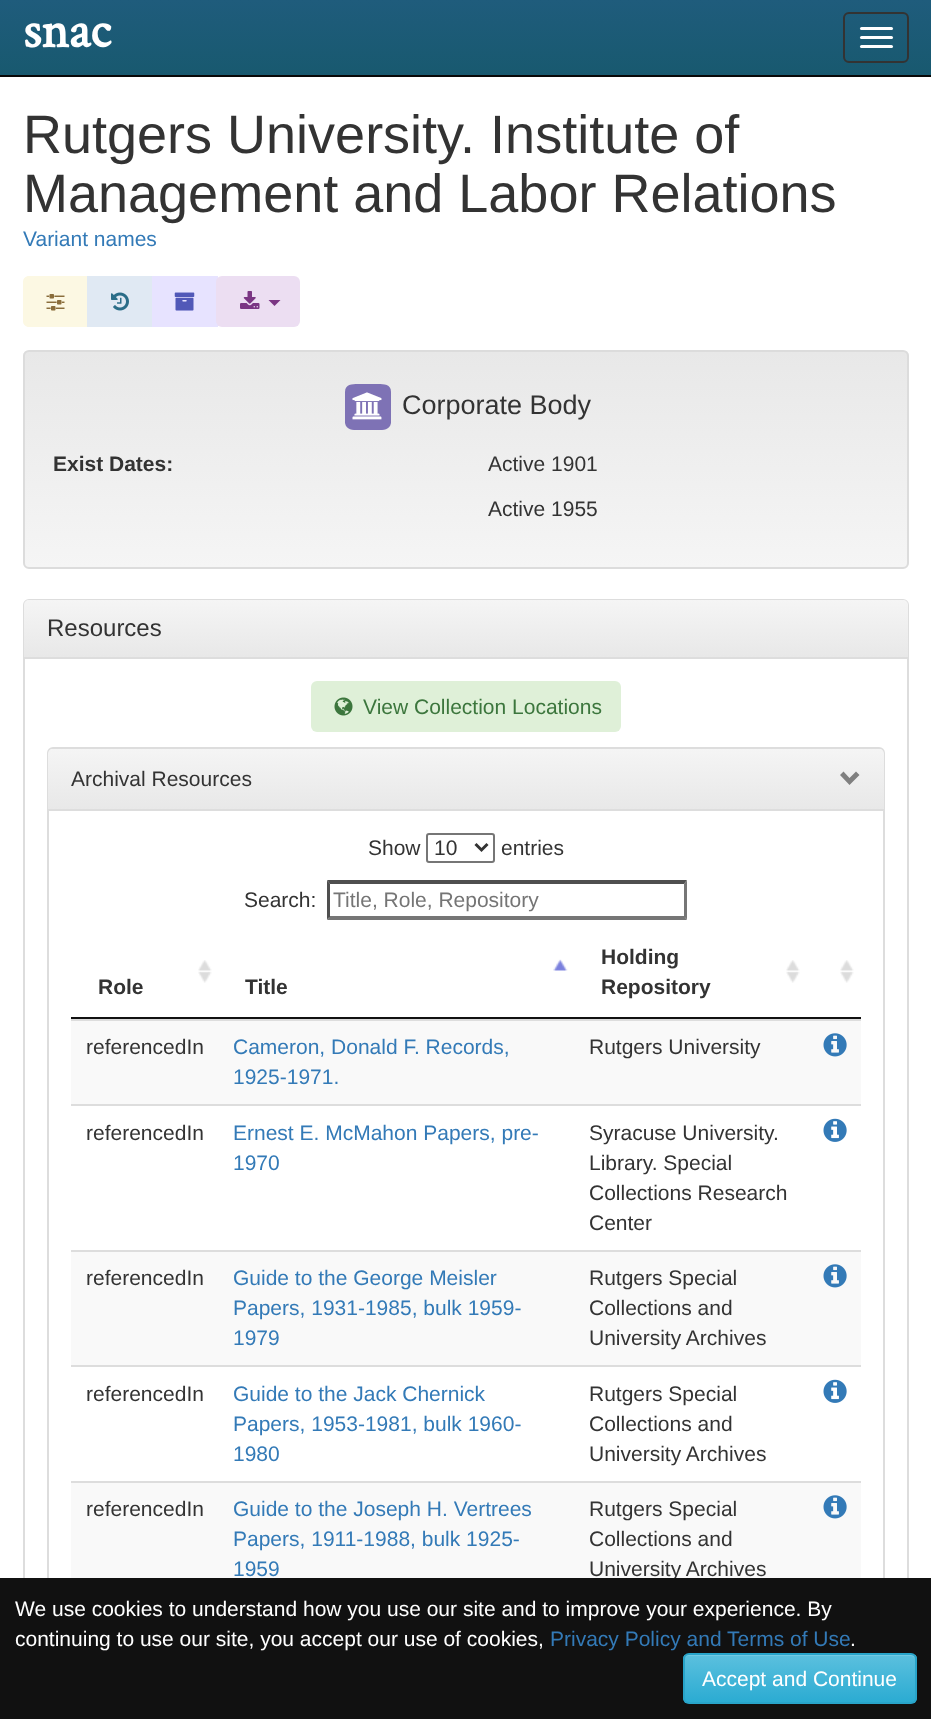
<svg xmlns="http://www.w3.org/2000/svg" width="931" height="1719">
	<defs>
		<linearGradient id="g1" gradientUnits="userSpaceOnUse" x1="466" y1="0" x2="466" y2="75"><stop offset="0" stop-color="#1F5C7C" /><stop offset="1" stop-color="#18596F" /></linearGradient>
		<clipPath id="clip1"><rect x="23" y="350" width="886" height="219" rx="6" /></clipPath>
		<linearGradient id="g2" gradientUnits="userSpaceOnUse" x1="466" y1="351" x2="466" y2="567"><stop offset="0" stop-color="#E8E8E8" /><stop offset="1" stop-color="#F5F5F5" /></linearGradient>
		<linearGradient id="g3" gradientUnits="userSpaceOnUse" x1="466" y1="600" x2="466" y2="657"><stop offset="0" stop-color="#F5F5F5" /><stop offset="1" stop-color="#E8E8E8" /></linearGradient>
		<linearGradient id="g4" gradientUnits="userSpaceOnUse" x1="466" y1="748" x2="466" y2="809"><stop offset="0" stop-color="#F5F5F5" /><stop offset="1" stop-color="#E8E8E8" /></linearGradient>
		<clipPath id="clip2"><rect x="683" y="1653" width="234" height="51" rx="6" /></clipPath>
		<linearGradient id="g5" gradientUnits="userSpaceOnUse" x1="800" y1="1655" x2="800" y2="1703"><stop offset="0" stop-color="#5BC0DE" /><stop offset="1" stop-color="#2AABD2" /></linearGradient>
	</defs>
	<rect width="100%" height="100%" fill="#FFFFFF" />
	<rect x="0" y="0" width="931" height="75" fill="url(#g1)" />
	<rect x="0" y="75" width="931" height="2" fill="#080808" />
	<text x="23" y="47" font-family="Crimson Text" font-size="52" font-weight="700" fill="#FFFFFF">snac</text>
	<rect x="844" y="13" width="64" height="49" rx="5" fill="none" stroke="#333333" stroke-width="2" />
	<rect x="860" y="27" width="33" height="3" rx="1.5" fill="#FFFFFF" />
	<rect x="860" y="36" width="33" height="3" rx="1.5" fill="#FFFFFF" />
	<rect x="860" y="45" width="33" height="3" rx="1.5" fill="#FFFFFF" />
	<g font-family="Liberation Sans" font-size="54" fill="#333333">
		<text x="23" y="153">Rutgers University. Institute of</text>
		<text x="23" y="212">Management and Labor Relations</text>
	</g>
	<text x="23" y="246" font-family="Liberation Sans" font-size="21" fill="#337AB7">Variant names</text>
	<path d="M29 276H89V327H29C25.5 327 23 324.5 23 321V282C23 278.5 25.5 276 29 276Z" fill="#FCF8E3" />
	<image x="46" y="294" width="19" height="17" href="assets/img1.png" />
	<rect x="87" y="276" width="65" height="51" fill="#E0E9F3" />
	<image x="111" y="292" width="18" height="19" href="assets/img2.png" />
	<rect x="152" y="276" width="66" height="51" fill="#E7E3FF" />
	<image x="174" y="292" width="21" height="19" href="assets/img3.png" />
	<rect x="216" y="276" width="84" height="51" rx="6" fill="#ECDEF2" />
	<image x="240" y="291" width="20" height="18" href="assets/img4.png" />
	<path d="M268.5 300H280.5L274.5 306Z" fill="#7A3583" />
	<g clip-path="url(#clip1)">
		<rect x="23" y="351" width="886" height="216" fill="url(#g2)" />
	</g>
	<rect x="24" y="351" width="884" height="217" rx="5" fill="none" stroke="#DCDCDC" stroke-width="2" />
	<path d="M391 392V423C390 430 383 430 378 430H358C353 430 346 430 345 423V392C345 384 352 384 358 384H378C384 384 391 384 391 392Z" fill="#7E72B5" />
	<image x="352" y="392" width="30" height="28" href="assets/img5.png" />
	<text x="402" y="414" font-family="Liberation Sans" font-size="27" fill="#333333">Corporate Body</text>
	<text x="53" y="471" font-family="Liberation Sans" font-size="21" font-weight="700" fill="#333333">Exist Dates:</text>
	<g font-family="Liberation Sans" font-size="21" fill="#333333">
		<text x="488" y="471">Active 1901</text>
		<text x="488" y="516">Active 1955</text>
	</g>
	<rect x="24" y="600" width="884" height="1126" rx="5" fill="none" stroke="#DDDDDD" stroke-width="2" />
	<path d="M29 600H903C906 600 908 602 908 605V657H24V605C24 602 26 600 29 600Z" fill="url(#g3)" />
	<text x="47" y="636" font-family="Liberation Sans" font-size="24" fill="#333333">Resources</text>
	<rect x="24" y="657" width="884" height="2" fill="#DDDDDD" />
	<rect x="311" y="681" width="310" height="51" rx="6" fill="#DFF0D8" />
	<image x="334" y="697" width="19" height="19" href="assets/img6.png" />
	<text x="363" y="714" font-family="Liberation Sans" font-size="21" fill="#3C763D">View Collection Locations</text>
	<rect x="48" y="748" width="836" height="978" rx="5" fill="none" stroke="#DDDDDD" stroke-width="2" />
	<path d="M53 749H879C882 749 884 751 884 754V809H48V754C48 751 50 749 53 749Z" fill="url(#g4)" />
	<text x="71" y="786" font-family="Liberation Sans" font-size="21" fill="#333333">Archival Resources</text>
	<path d="M859.5 775L849.5 785L840 775L843.5 771.5L849.5 778L856 771.5Z" fill="#808080" />
	<rect x="48" y="809" width="836" height="2" fill="#DDDDDD" />
	<text x="368" y="855" font-family="Liberation Sans" font-size="21" fill="#333333">Show</text>
	<rect x="427" y="834" width="67" height="28" rx="2" fill="none" stroke="#767676" stroke-width="2" />
	<path d="M475.5 844L481.5 850L487.5 844" fill="none" stroke="#333333" stroke-width="3" />
	<g font-family="Liberation Sans" font-size="21" fill="#333333">
		<text x="434" y="855">10</text>
		<text x="501" y="855">entries</text>
		<text x="244" y="907">Search:</text>
	</g>
	<path d="M327 880H687L684 884H330Z" fill="#4F4F4F" />
	<path d="M687 880.5V919.5L684 916.5V883.5Z" fill="#767676" />
	<path d="M687 920H327L330 916H684Z" fill="#767676" />
	<path d="M327 919.5V880.5L330 883.5V916.5Z" fill="#4F4F4F" />
	<text x="333" y="907" font-family="Liberation Sans" font-size="21" fill="#757575">Title, Role, Repository</text>
	<image x="786" y="960" width="14" height="23" href="assets/img7.png" />
	<g font-family="Liberation Sans" font-size="21" font-weight="700" fill="#333333">
		<text x="601" y="964">Holding</text>
		<text x="601" y="994">Repository</text>
	</g>
	<image x="840" y="960" width="14" height="23" href="assets/img7.png" />
	<image x="198" y="960" width="14" height="23" href="assets/img7.png" />
	<rect x="71" y="1017" width="790" height="2" fill="#111111" />
	<text x="98" y="994" font-family="Liberation Sans" font-size="21" font-weight="700" fill="#333333">Role</text>
	<image x="553" y="959" width="15" height="12" href="assets/img8.png" />
	<text x="245" y="994" font-family="Liberation Sans" font-size="21" font-weight="700" fill="#333333">Title</text>
	<rect x="71" y="1021" width="790" height="83" fill="#F9F9F9" />
	<rect x="71" y="1019" width="790" height="2" fill="#DDDDDD" />
	<text x="86" y="1054" font-family="Liberation Sans" font-size="21" fill="#333333">referencedIn</text>
	<g font-family="Liberation Sans" font-size="21" fill="#337AB7">
		<text x="233" y="1054">Cameron, Donald F. Records,</text>
		<text x="233" y="1084">1925-1971.</text>
	</g>
	<text x="589" y="1054" font-family="Liberation Sans" font-size="21" fill="#333333">Rutgers University</text>
	<image x="823" y="1033" width="24" height="24" href="assets/img9.png" />
	<rect x="71" y="1104" width="790" height="2" fill="#DDDDDD" />
	<text x="86" y="1140" font-family="Liberation Sans" font-size="21" fill="#333333">referencedIn</text>
	<g font-family="Liberation Sans" font-size="21" fill="#337AB7">
		<text x="233" y="1140">Ernest E. McMahon Papers, pre-</text>
		<text x="233" y="1170">1970</text>
	</g>
	<g font-family="Liberation Sans" font-size="21" fill="#333333">
		<text x="589" y="1140">Syracuse University.</text>
		<text x="589" y="1170">Library. Special</text>
		<text x="589" y="1200">Collections Research</text>
		<text x="589" y="1230">Center</text>
	</g>
	<image x="823" y="1118" width="24" height="24" href="assets/img10.png" />
	<rect x="71" y="1252" width="790" height="113" fill="#F9F9F9" />
	<rect x="71" y="1250" width="790" height="2" fill="#DDDDDD" />
	<text x="86" y="1285" font-family="Liberation Sans" font-size="21" fill="#333333">referencedIn</text>
	<g font-family="Liberation Sans" font-size="21" fill="#337AB7">
		<text x="233" y="1285">Guide to the George Meisler</text>
		<text x="233" y="1315">Papers, 1931-1985, bulk 1959-</text>
		<text x="233" y="1345">1979</text>
	</g>
	<g font-family="Liberation Sans" font-size="21" fill="#333333">
		<text x="589" y="1285">Rutgers Special</text>
		<text x="589" y="1315">Collections and</text>
		<text x="589" y="1345">University Archives</text>
	</g>
	<image x="823" y="1264" width="24" height="24" href="assets/img9.png" />
	<rect x="71" y="1365" width="790" height="2" fill="#DDDDDD" />
	<text x="86" y="1401" font-family="Liberation Sans" font-size="21" fill="#333333">referencedIn</text>
	<g font-family="Liberation Sans" font-size="21" fill="#337AB7">
		<text x="233" y="1401">Guide to the Jack Chernick</text>
		<text x="233" y="1431">Papers, 1953-1981, bulk 1960-</text>
		<text x="233" y="1461">1980</text>
	</g>
	<g font-family="Liberation Sans" font-size="21" fill="#333333">
		<text x="589" y="1401">Rutgers Special</text>
		<text x="589" y="1431">Collections and</text>
		<text x="589" y="1461">University Archives</text>
	</g>
	<image x="823" y="1379" width="24" height="24" href="assets/img10.png" />
	<rect x="71" y="1483" width="790" height="95" fill="#F9F9F9" />
	<rect x="71" y="1481" width="790" height="2" fill="#DDDDDD" />
	<text x="86" y="1516" font-family="Liberation Sans" font-size="21" fill="#333333">referencedIn</text>
	<g font-family="Liberation Sans" font-size="21" fill="#337AB7">
		<text x="233" y="1516">Guide to the Joseph H. Vertrees</text>
		<text x="233" y="1546">Papers, 1911-1988, bulk 1925-</text>
		<text x="233" y="1576">1959</text>
	</g>
	<g font-family="Liberation Sans" font-size="21" fill="#333333">
		<text x="589" y="1516">Rutgers Special</text>
		<text x="589" y="1546">Collections and</text>
		<text x="589" y="1576">University Archives</text>
	</g>
	<image x="823" y="1495" width="24" height="24" href="assets/img9.png" />
	<rect x="0" y="1578" width="931" height="141" fill="#111111" />
	<g font-family="Liberation Sans" font-size="21" fill="#FFFFFF">
		<text x="15" y="1616">We use cookies to understand how you use our site and to improve your experience. By</text>
		<text x="15" y="1646">continuing to use our site, you accept our use of cookies,</text>
	</g>
	<text x="550" y="1646" font-family="Liberation Sans" font-size="21" fill="#337AB7">Privacy Policy and Terms of Use</text>
	<text x="850" y="1646" font-family="Liberation Sans" font-size="21" fill="#FFFFFF">.</text>
	<g clip-path="url(#clip2)">
		<rect x="683" y="1655" width="234" height="48" fill="url(#g5)" />
	</g>
	<path d="M688 1656H910C913 1656 915 1658 915 1660C915 1657 913 1655 910 1655H689C686 1655 684 1657 684 1660C684 1658 686 1656 688 1656Z" fill="#73C9E3" />
	<rect x="684" y="1654" width="232" height="49" rx="5" fill="none" stroke="#28A4C9" stroke-width="2" />
	<text x="702" y="1686" font-family="Liberation Sans" font-size="21" fill="#FFFFFF">Accept and Continue</text>
</svg>
